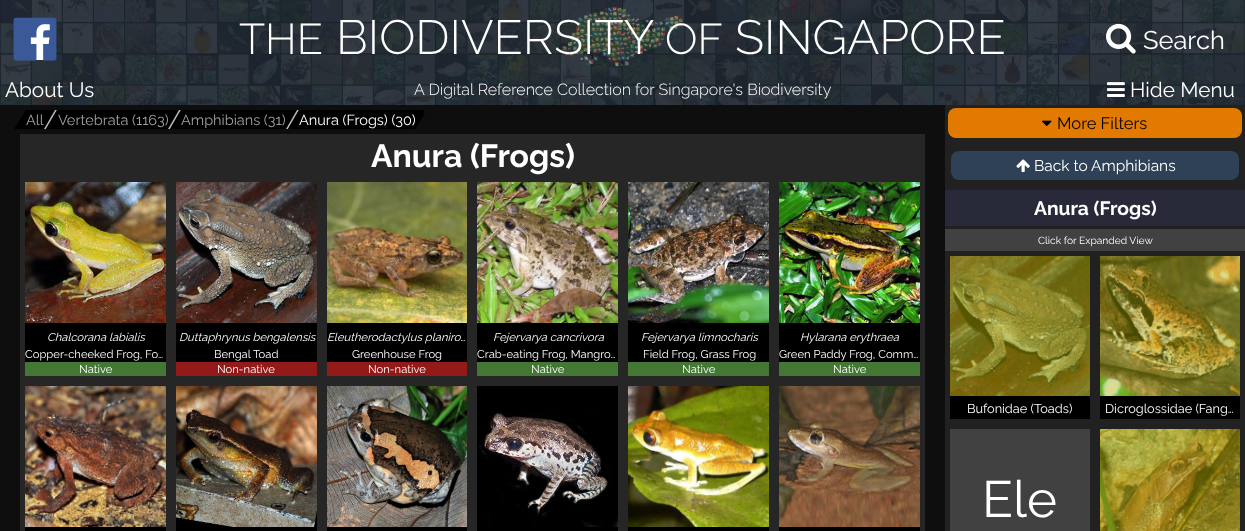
<svg xmlns="http://www.w3.org/2000/svg" width="1245" height="531">
	<rect width="100%" height="100%" fill="#0E0E0E" />
	<image x="0" y="0" width="1245" height="105" href="assets/img1.png" />
	<rect x="30" y="24" width="20" height="36" fill="#FFFFFF" />
	<image x="13" y="17" width="44" height="44" href="assets/img2.png" />
	<image x="562" y="7" width="121" height="60" href="assets/img3.png" />
	<text x="239" y="54" font-family="Raleway" font-size="43" font-weight="300" fill="#FFFFFF">THE</text>
	<text x="336" y="54" font-family="Raleway" font-size="48" font-weight="300" fill="#FFFFFF">BIODIVERSITY</text>
	<text x="665" y="54" font-family="Raleway" font-size="43" font-weight="300" fill="#FFFFFF">OF</text>
	<text x="735" y="54" font-family="Raleway" font-size="48" font-weight="300" fill="#FFFFFF">SINGAPORE</text>
	<image x="1106" y="23" width="30" height="31" href="assets/img4.png" />
	<text x="1143" y="49" font-family="Raleway" font-size="25.5" fill="#FFFFFF">Search</text>
	<text x="5" y="97" font-family="Raleway" font-size="20.75" fill="#FFFFFF">About Us</text>
	<text x="414" y="95" font-family="Raleway" font-size="16" font-weight="300" fill="#FFFFFF">A Digital Reference Collection for Singapore's Biodiversity</text>
	<image x="1107" y="82" width="18" height="15" href="assets/img5.png" />
	<text x="1130" y="97" font-family="Raleway" font-size="20.75" fill="#FFFFFF">Hide Menu</text>
	<path d="M26 110H57L46 129H14Z" fill="#000000" />
	<path d="M55 110H57L46 129H44Z" fill="#B5B5B5" />
	<text x="26" y="125" font-family="Raleway" font-size="14.5" fill="#A0A0A0">All</text>
	<path d="M57 110H181L170 129H46Z" fill="#000000" />
	<path d="M179 110H181L170 129H168Z" fill="#B5B5B5" />
	<text x="58" y="125" font-family="Raleway" font-size="14.5" fill="#A0A0A0">Vertebrata (1163)</text>
	<path d="M181 110H299L288 129H170Z" fill="#000000" />
	<path d="M297 110H299L288 129H286Z" fill="#B5B5B5" />
	<text x="181" y="125" font-family="Raleway" font-size="14.5" fill="#A0A0A0">Amphibians (31)</text>
	<path d="M299 110H422C424 110 425 112 424 115L415 129H288Z" fill="#000000" />
	<text x="299" y="125" font-family="Raleway" font-size="14.5" fill="#FFFFFF">Anura (Frogs) (30)</text>
	<rect x="20" y="134" width="905" height="397" fill="#262626" />
	<text x="371" y="167" font-family="Raleway" font-size="32" font-weight="700" fill="#FFFFFF">Anura (Frogs)</text>
	<rect x="25" y="323" width="141" height="39" fill="#000000" />
	<image x="25" y="182" width="141" height="141" href="assets/img6.png" />
	<text x="47" y="341" font-family="Raleway" font-size="11.25" font-style="italic" fill="#FFFFFF">Chalcorana labialis</text>
	<text x="25" y="358" font-family="Raleway" font-size="11.25" fill="#FFFFFF">Copper-cheeked Frog, Fo…</text>
	<rect x="25" y="362" width="141" height="14" fill="#447733" />
	<text x="79" y="373" font-family="Raleway" font-size="11.25" fill="#FFFFFF">Native</text>
	<rect x="176" y="323" width="141" height="39" fill="#000000" />
	<image x="176" y="182" width="141" height="141" href="assets/img7.png" />
	<text x="179" y="341" font-family="Raleway" font-size="11.25" font-style="italic" fill="#FFFFFF">Duttaphrynus bengalensis</text>
	<text x="214" y="358" font-family="Raleway" font-size="11.25" fill="#FFFFFF">Bengal Toad</text>
	<rect x="176" y="362" width="141" height="14" fill="#941919" />
	<text x="217" y="373" font-family="Raleway" font-size="11.25" fill="#FFFFFF">Non-native</text>
	<rect x="327" y="323" width="140" height="39" fill="#000000" />
	<image x="327" y="182" width="140" height="141" href="assets/img8.png" />
	<text x="327" y="341" font-family="Raleway" font-size="11.25" font-style="italic" fill="#FFFFFF">Eleutherodactylus planiro…</text>
	<text x="352" y="358" font-family="Raleway" font-size="11.25" fill="#FFFFFF">Greenhouse Frog</text>
	<rect x="327" y="362" width="140" height="14" fill="#941919" />
	<text x="368" y="373" font-family="Raleway" font-size="11.25" fill="#FFFFFF">Non-native</text>
	<rect x="477" y="323" width="141" height="39" fill="#000000" />
	<image x="477" y="182" width="141" height="141" href="assets/img9.png" />
	<text x="493" y="341" font-family="Raleway" font-size="11.25" font-style="italic" fill="#FFFFFF">Fejervarya cancrivora</text>
	<text x="477" y="358" font-family="Raleway" font-size="11.25" fill="#FFFFFF">Crab-eating Frog, Mangro…</text>
	<rect x="477" y="362" width="141" height="14" fill="#447733" />
	<text x="531" y="373" font-family="Raleway" font-size="11.25" fill="#FFFFFF">Native</text>
	<rect x="628" y="323" width="141" height="39" fill="#000000" />
	<image x="628" y="182" width="141" height="141" href="assets/img10.png" />
	<text x="641" y="341" font-family="Raleway" font-size="11.25" font-style="italic" fill="#FFFFFF">Fejervarya limnocharis</text>
	<text x="643" y="358" font-family="Raleway" font-size="11.25" fill="#FFFFFF">Field Frog, Grass Frog</text>
	<rect x="628" y="362" width="141" height="14" fill="#447733" />
	<text x="682" y="373" font-family="Raleway" font-size="11.25" fill="#FFFFFF">Native</text>
	<rect x="779" y="323" width="141" height="39" fill="#000000" />
	<image x="779" y="182" width="141" height="141" href="assets/img11.png" />
	<text x="800" y="341" font-family="Raleway" font-size="11.25" font-style="italic" fill="#FFFFFF">Hylarana erythraea</text>
	<text x="779" y="358" font-family="Raleway" font-size="11.25" fill="#FFFFFF">Green Paddy Frog, Comm…</text>
	<rect x="779" y="362" width="141" height="14" fill="#447733" />
	<text x="833" y="373" font-family="Raleway" font-size="11.25" fill="#FFFFFF">Native</text>
	<rect x="25" y="527" width="141" height="4" fill="#000000" />
	<image x="25" y="386" width="141" height="141" href="assets/img12.png" />
	<rect x="176" y="527" width="141" height="4" fill="#000000" />
	<image x="176" y="386" width="141" height="141" href="assets/img13.png" />
	<rect x="327" y="527" width="140" height="4" fill="#000000" />
	<image x="327" y="386" width="140" height="141" href="assets/img14.png" />
	<rect x="477" y="386" width="141" height="145" fill="#000000" />
	<image x="478" y="412" width="140" height="115" href="assets/img15.png" />
	<rect x="628" y="527" width="141" height="4" fill="#000000" />
	<image x="628" y="386" width="141" height="141" href="assets/img16.png" />
	<rect x="779" y="527" width="141" height="4" fill="#000000" />
	<image x="779" y="386" width="141" height="141" href="assets/img17.png" />
	<rect x="945" y="105" width="300" height="426" fill="#212121" />
	<rect x="948" y="108" width="294" height="30" rx="8" fill="#E27A00" />
	<image x="1042" y="120" width="10" height="6" href="assets/img18.png" />
	<text x="1057" y="129" font-family="Raleway" font-size="16.5" fill="#000000">More Filters</text>
	<rect x="951" y="151" width="288" height="29" rx="8" fill="#2E4156" />
	<image x="1016" y="159" width="14" height="14" href="assets/img19.png" />
	<g font-family="Raleway" font-size="15.5" fill="#FFFFFF">
		<text x="1034" y="171">Back to</text>
		<text x="1091" y="171">Amphibians</text>
	</g>
	<rect x="945" y="190" width="300" height="36" fill="#282A3A" />
	<text x="1034" y="215" font-family="Raleway" font-size="19.25" font-weight="700" fill="#FFFFFF">Anura (Frogs)</text>
	<rect x="945" y="229" width="300" height="22" fill="#414141" />
	<text x="1038" y="244" font-family="Raleway" font-size="10.25" fill="#FFFFFF">Click for Expanded View</text>
	<rect x="950" y="396" width="140" height="23" fill="#000000" />
	<image x="950" y="256" width="140" height="140" href="assets/img20.png" />
	<text x="967" y="413" font-family="Raleway" font-size="12.75" fill="#FFFFFF">Bufonidae (Toads)</text>
	<rect x="1100" y="396" width="140" height="23" fill="#000000" />
	<image x="1100" y="256" width="140" height="140" href="assets/img21.png" />
	<text x="1105" y="413" font-family="Raleway" font-size="12.75" fill="#FFFFFF">Dicroglossidae (Fang…</text>
	<rect x="950" y="429" width="140" height="102" fill="#414141" />
	<text x="982" y="517" font-family="Raleway" font-size="51" fill="#FFFFFF">Ele</text>
	<image x="1100" y="429" width="140" height="102" href="assets/img22.png" />
</svg>
